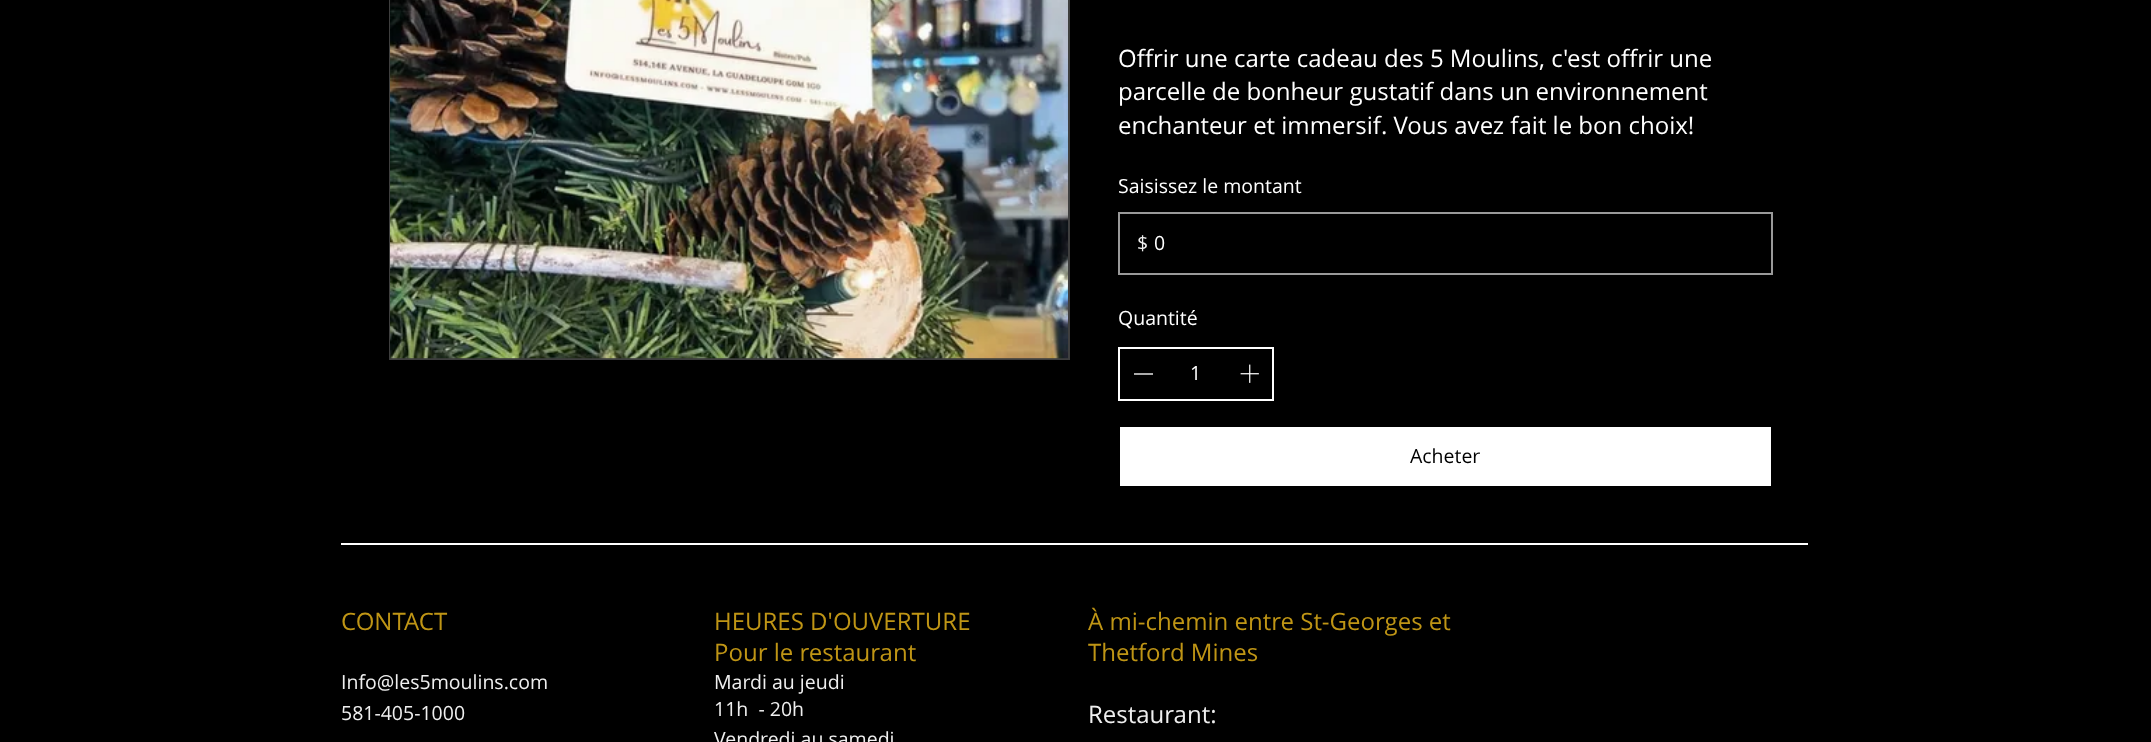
<svg xmlns="http://www.w3.org/2000/svg" width="2151" height="742">
	<rect width="100%" height="100%" fill="#000000" />
	<rect x="390" y="-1" width="679" height="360" fill="none" stroke="#3E3E3E" stroke-width="2" />
	<image x="390" y="0" width="678" height="359" href="assets/img1.png" />
	<g font-family="Open Sans" font-size="24" fill="#FFFFFF">
		<text x="1118" y="67">Offrir une carte cadeau des 5 Moulins, c'est offrir une</text>
		<text x="1118" y="100">parcelle de bonheur gustatif dans un environnement</text>
		<text x="1118" y="134">enchanteur et immersif. Vous avez fait le bon choix!</text>
	</g>
	<text x="1118" y="193" font-family="Open Sans" font-size="19.5" fill="#FFFFFF">Saisissez le montant</text>
	<rect x="1119" y="213" width="653" height="61" fill="none" stroke="#999999" stroke-width="2" />
	<text x="1137" y="250" font-family="Open Sans" font-size="19.5" fill="#EFEFEF">$</text>
	<g font-family="Open Sans" font-size="19.5" fill="#FFFFFF">
		<text x="1154" y="250">0</text>
		<text x="1118" y="325">Quantité</text>
	</g>
	<rect x="1119" y="348" width="154" height="52" fill="none" stroke="#FFFFFF" stroke-width="2" />
	<rect x="1134" y="373" width="19" height="2" fill="#ABABAB" />
	<text x="1190" y="380" font-family="Open Sans" font-size="19.5" fill="#FFFFFF">1</text>
	<image x="1240" y="364" width="19" height="19" href="assets/img2.png" />
	<rect x="1119" y="426" width="653" height="61" rx="0.5" fill="#FFFFFF" stroke="#000000" stroke-width="2" />
	<text x="1410" y="463" font-family="Open Sans" font-size="19.5" fill="#000000">Acheter</text>
	<rect x="341" y="543" width="1467" height="2" fill="#FFFFFF" />
	<text x="341" y="630" font-family="Open Sans" font-size="24" fill="#BF9515">CONTACT</text>
	<g font-family="Open Sans" font-size="19.5" fill="#EFEFEF">
		<text x="341" y="689">Info@les5moulins.com</text>
		<text x="341" y="720">581-405-1000</text>
	</g>
	<g font-family="Open Sans" font-size="24" fill="#BF9515">
		<text x="714" y="630">HEURES D'OUVERTURE</text>
		<text x="714" y="661">Pour le restaurant</text>
	</g>
	<g font-family="Open Sans" font-size="19.5" fill="#EFEFEF">
		<text x="714" y="689">Mardi au jeudi</text>
		<text x="714" y="716" xml:space="preserve">11h  - 20h</text>
		<text x="714" y="746">Vendredi au samedi</text>
	</g>
	<g font-family="Open Sans" font-size="24" fill="#BF9515">
		<text x="1088" y="630">À mi-chemin entre St-Georges et</text>
		<text x="1088" y="661">Thetford Mines</text>
	</g>
	<text x="1088" y="723" font-family="Open Sans" font-size="24" fill="#EFEFEF">Restaurant:</text>
</svg>
